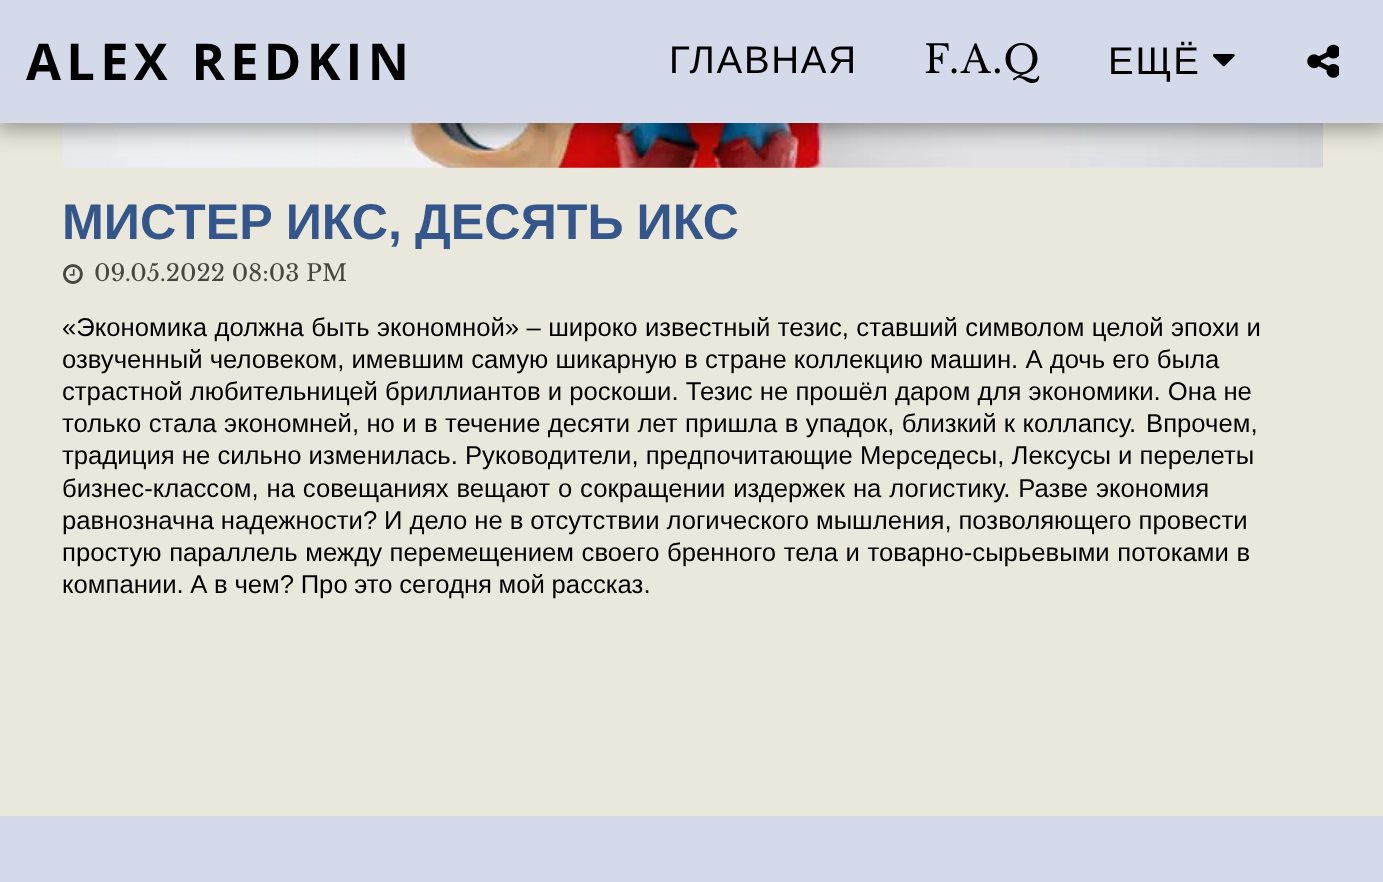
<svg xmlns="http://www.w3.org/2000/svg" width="1383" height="882">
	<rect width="100%" height="100%" fill="#EAE8DC" />
	<image x="63" y="123" width="1260" height="45" href="assets/img3.png" />
	<rect x="-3" y="0" width="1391" height="130" fill="#000000" fill-opacity="0.35" filter="blur(10.5px)" />
	<rect x="0" y="0" width="1383" height="123" fill="#D5DAEB" />
	<text x="26" y="80" font-family="Open Sans" font-size="50.75" font-weight="700" letter-spacing="5.25" fill="#000000">ALEX REDKIN</text>
	<text x="669" y="73" font-family="Liberation Sans" font-size="38.5" letter-spacing="1.75" fill="#000000">ГЛАВНАЯ</text>
	<text x="924" y="73" font-family="Libre Baskerville" font-size="38.5" letter-spacing="1.75" fill="#000000">F.A.Q</text>
	<text x="1108" y="74" font-family="Liberation Sans" font-size="38.5" letter-spacing="1.75" fill="#000000">ЕЩЁ</text>
	<image x="1213" y="54" width="22" height="13" href="assets/img1.png" />
	<image x="1307" y="44" width="32" height="34" href="assets/img2.png" />
	<text x="62" y="239" word-spacing="-1" font-family="Liberation Sans" font-size="50.25" font-weight="700" fill="#34568B">МИСТЕР ИКС, ДЕСЯТЬ ИКС</text>
	<image x="63" y="264" width="20" height="20" href="assets/img4.png" />
	<text x="94" y="281" font-family="Libre Baskerville" font-size="23.1" fill="#464642">09.05.2022 08:03 PM</text>
	<g font-family="Liberation Sans" font-size="25.7" fill="#000000">
		<text x="62" y="336" word-spacing="0.25">«Экономика должна быть экономной» – широко известный тезис, ставший символом целой эпохи и</text>
		<text x="62" y="368">озвученный человеком, имевшим самую шикарную в стране коллекцию машин. А дочь его была</text>
		<text x="62" y="400">страстной любительницей бриллиантов и роскоши. Тезис не прошёл даром для экономики. Она не</text>
		<text x="62" y="432" word-spacing="0.25">только стала экономней, но и в течение десяти лет пришла в упадок, близкий к коллапсу.</text>
		<text x="1146" y="432">Впрочем,</text>
		<text x="62" y="464">традиция не сильно изменилась. Руководители, предпочитающие Мерседесы, Лексусы и перелеты</text>
		<text x="62" y="497" word-spacing="0.75">бизнес-классом, на совещаниях вещают о сокращении издержек на логистику. Разве экономия</text>
		<text x="62" y="529" word-spacing="-0.25">равнозначна надежности? И дело не в отсутствии логического мышления, позволяющего провести</text>
		<text x="62" y="561" word-spacing="0.5">простую параллель между перемещением своего бренного тела и товарно-сырьевыми потоками в</text>
		<text x="62" y="593" word-spacing="-0.5">компании. А в чем? Про это сегодня мой рассказ.</text>
	</g>
	<rect x="0" y="816" width="1383" height="66" fill="#D5DAEB" />
</svg>
